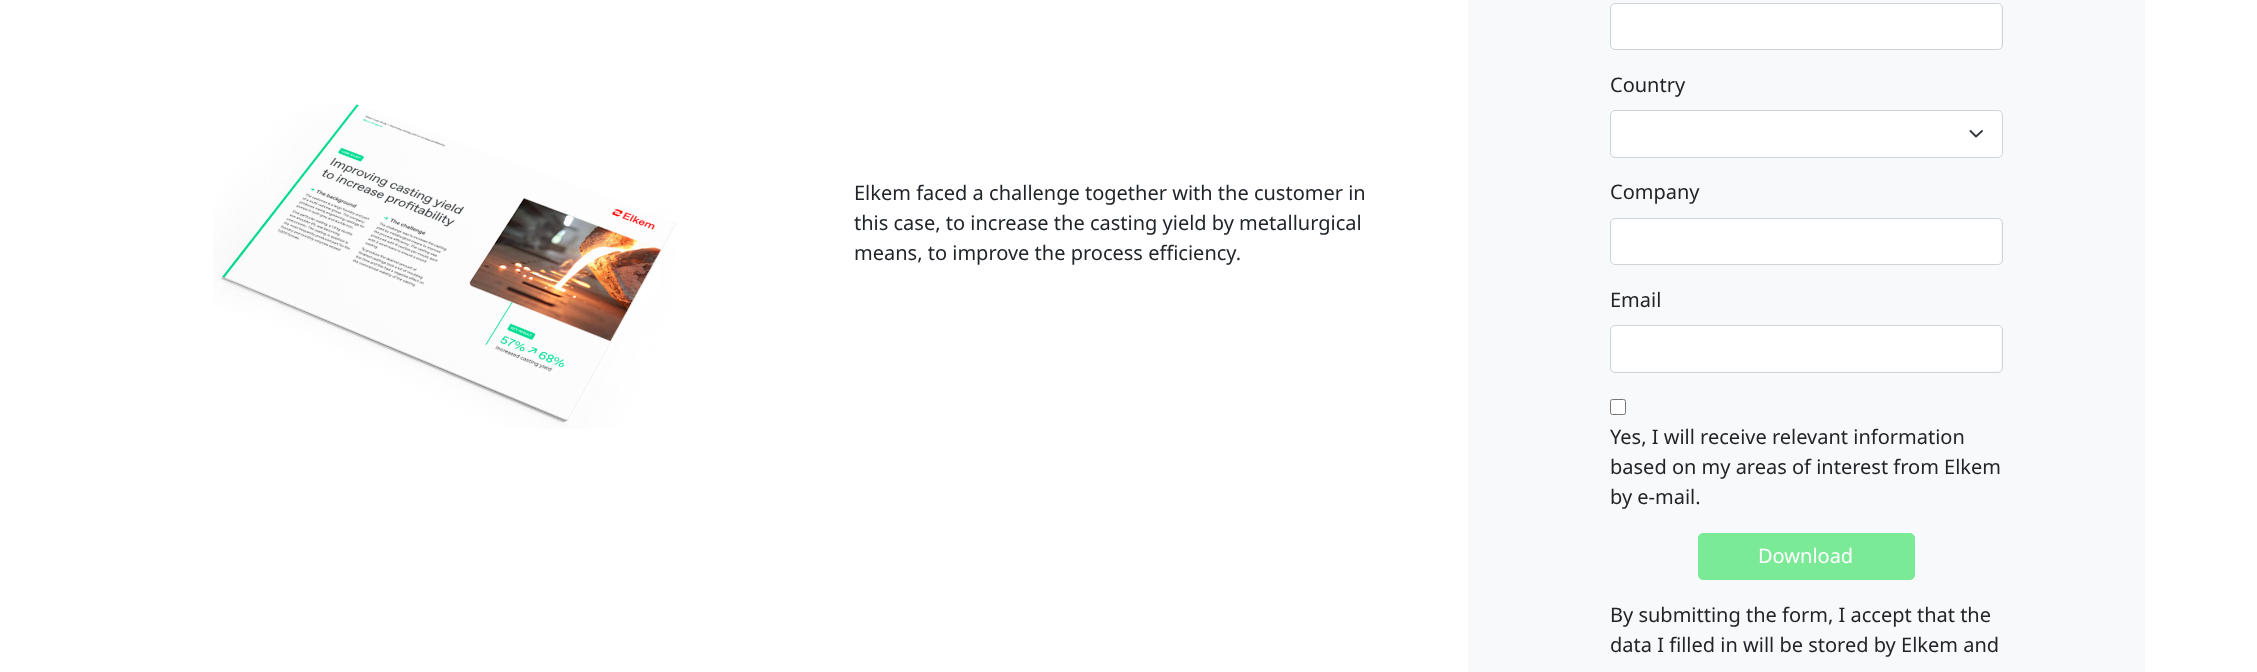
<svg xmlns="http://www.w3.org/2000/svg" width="2257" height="672">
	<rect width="100%" height="100%" fill="#FFFFFF" />
	<image x="213" y="104" width="464" height="325" href="assets/img1.png" />
	<g font-family="Noto Sans" font-size="20" fill="#212529">
		<text x="854" y="200">Elkem faced a challenge together with the customer in</text>
		<text x="854" y="230">this case, to increase the casting yield by metallurgical</text>
		<text x="854" y="260">means, to improve the process efficiency.</text>
	</g>
	<rect x="1468" y="0" width="677" height="672" fill="#F8F9FA" />
	<rect x="1611" y="4" width="390" height="45" rx="4" fill="#FFFFFF" />
	<rect x="1610.5" y="3.5" width="392" height="46" rx="4.5" fill="none" stroke="#CED4DA" />
	<text x="1610" y="92" font-family="Noto Sans" font-size="20" fill="#212529">Country</text>
	<rect x="1610" y="110" width="393" height="48" rx="5" fill="#FFFFFF" />
	<path d="M1970.5 131L1976 136.5L1982 131" fill="none" stroke="#343A40" stroke-width="1.9" stroke-linecap="round" stroke-linejoin="round" />
	<rect x="1610.5" y="110.5" width="392" height="47" rx="4.5" fill="none" stroke="#CED4DA" />
	<text x="1610" y="199" font-family="Noto Sans" font-size="20" fill="#212529">Company</text>
	<rect x="1611" y="219" width="390" height="45" rx="4" fill="#FFFFFF" />
	<rect x="1610.5" y="218.5" width="392" height="46" rx="4.5" fill="none" stroke="#CED4DA" />
	<text x="1610" y="307" font-family="Noto Sans" font-size="20" fill="#212529">Email</text>
	<rect x="1611" y="326" width="390" height="45" rx="4" fill="#FFFFFF" />
	<rect x="1610.5" y="325.5" width="392" height="47" rx="4.5" fill="none" stroke="#CED4DA" />
	<rect x="1610.5" y="399.5" width="15" height="15" rx="2" fill="#FFFFFF" stroke="#767676" />
	<g font-family="Noto Sans" font-size="20" fill="#212529">
		<text x="1610" y="444">Yes, I will receive relevant information</text>
		<text x="1610" y="474">based on my areas of interest from Elkem</text>
		<text x="1610" y="504">by e-mail.</text>
	</g>
	<rect x="1698.5" y="533.5" width="216" height="46" rx="4.5" fill="#7AEA97" stroke="#7AEA97" />
	<text x="1758" y="563" font-family="Noto Sans" font-size="20" fill="#FFFFFF">Download</text>
	<g font-family="Noto Sans" font-size="20" fill="#212529">
		<text x="1610" y="622">By submitting the form, I accept that the</text>
		<text x="1610" y="652">data I filled in will be stored by Elkem and</text>
	</g>
</svg>
